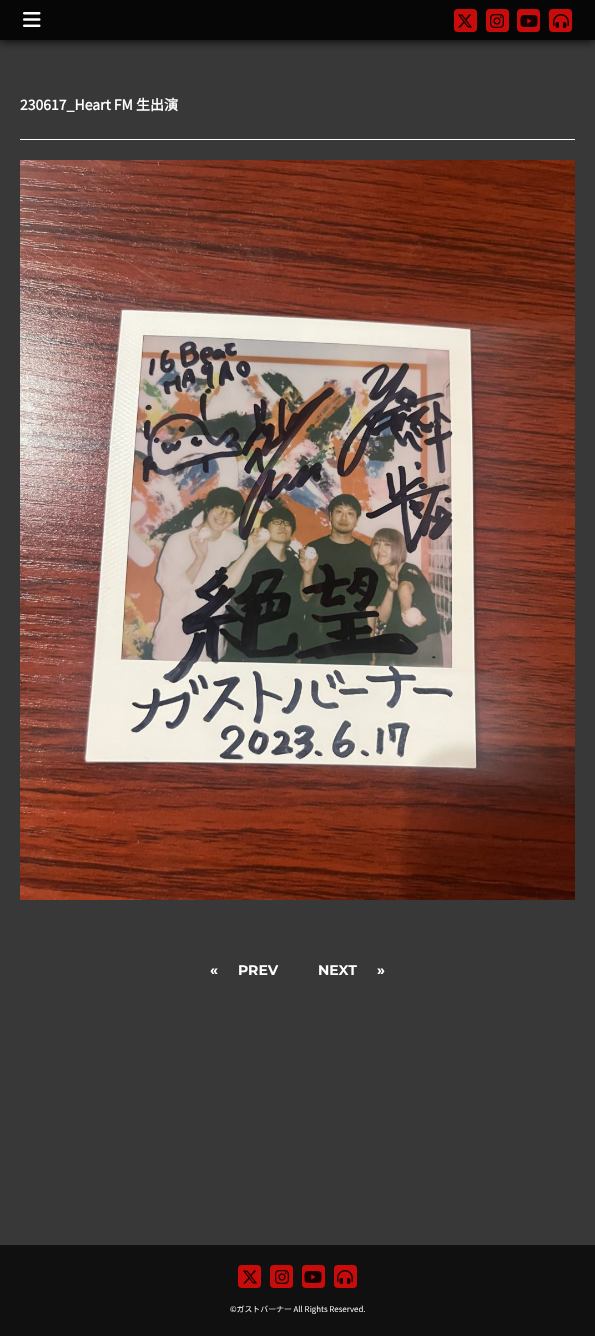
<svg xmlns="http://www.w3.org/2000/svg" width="595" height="1336">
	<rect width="100%" height="100%" fill="#383838" />
	<rect x="0" y="1" width="595" height="40" fill="#000000" fill-opacity="0.9" filter="blur(5px)" />
	<rect x="0" y="0" width="595" height="40" fill="#060606" />
	<image x="23" y="12" width="18" height="15" href="assets/img1.png" />
	<rect x="454" y="9" width="23" height="23" rx="4" fill="#C80C0C" />
	<image x="458" y="14" width="15" height="14" href="assets/img2.png" />
	<rect x="486" y="9" width="23" height="23" rx="4" fill="#C80C0C" />
	<image x="490" y="14" width="14" height="14" href="assets/img3.png" />
	<rect x="517" y="9" width="23" height="23" rx="4" fill="#C80C0C" />
	<image x="520" y="15" width="18" height="12" href="assets/img4.png" />
	<rect x="549" y="9" width="23" height="23" rx="4" fill="#C80C0C" />
	<image x="553" y="14" width="16" height="14" href="assets/img5.png" />
	<rect x="20" y="139" width="555" height="1" fill="#FFFFFF" />
	<text x="20" y="110" font-family="Noto Sans JP" font-size="14" font-weight="700" fill="#FFFFFF">230617_Heart FM 生出演</text>
	<image x="20" y="160" width="555" height="740" href="assets/img6.png" />
	<g font-family="Montserrat" font-size="14" font-weight="700" fill="#FFFFFF">
		<text x="210" y="975">«</text>
		<text x="238" y="975">PREV</text>
		<text x="318" y="975">NEXT</text>
		<text x="377" y="975">»</text>
	</g>
	<rect x="0" y="1245" width="595" height="91" fill="#101010" />
	<rect x="238" y="1265" width="23" height="23" rx="4" fill="#C80C0C" />
	<image x="243" y="1270" width="15" height="14" href="assets/img2.png" />
	<rect x="270" y="1265" width="23" height="23" rx="4" fill="#C80C0C" />
	<image x="275" y="1270" width="14" height="14" href="assets/img3.png" />
	<rect x="302" y="1265" width="23" height="23" rx="4" fill="#C80C0C" />
	<image x="304" y="1271" width="18" height="12" href="assets/img4.png" />
	<rect x="334" y="1265" width="23" height="23" rx="4" fill="#C80C0C" />
	<image x="337" y="1270" width="16" height="14" href="assets/img5.png" />
	<text x="230" y="1312" font-family="Noto Sans JP" font-size="7.9" font-weight="100" fill="#FFFFFF">©︎ガストバーナー All Rights Reserved.</text>
</svg>
